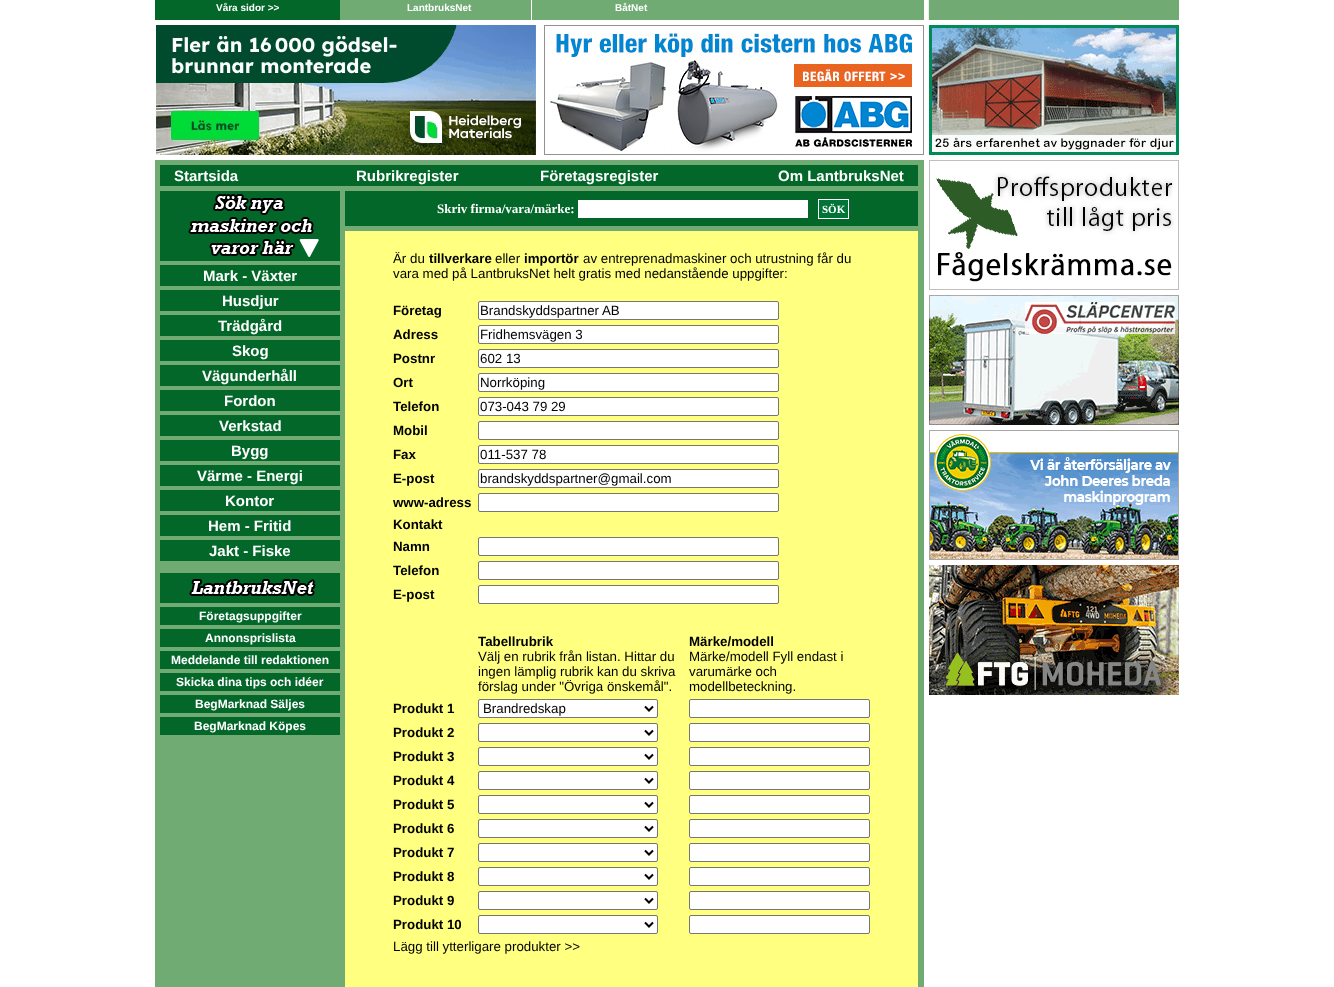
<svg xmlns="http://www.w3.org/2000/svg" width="1334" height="987">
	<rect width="100%" height="100%" fill="#FFFFFF" />
	<rect x="340" y="0" width="584" height="20" fill="#71AB74" />
	<rect x="155" y="0" width="185" height="20" fill="#036729" />
	<text x="216" y="11" font-family="Liberation Sans" font-size="10" font-weight="700" fill="#FFFFFF">Våra sidor &gt;&gt;</text>
	<rect x="531" y="0" width="1" height="20" fill="#FFFFFF" />
	<g font-family="Liberation Sans" font-size="10" font-weight="700" fill="#FFFFFF">
		<text x="407" y="11">LantbruksNet</text>
		<text x="615" y="11">BåtNet</text>
	</g>
	<image x="927" y="0" width="252" height="20" href="assets/img1.png" />
	<image x="156" y="25" width="380" height="130" href="assets/img2.png" />
	<image x="544" y="25" width="380" height="130" href="assets/img3.png" />
	<image x="929" y="25" width="250" height="130" href="assets/img4.png" />
	<rect x="155" y="160" width="769" height="827" fill="#71AB74" />
	<rect x="160" y="165" width="758" height="21" fill="#036729" />
	<g font-family="Liberation Sans" font-size="15" font-weight="700" fill="#FFFFFF">
		<text x="174" y="181">Startsida</text>
		<text x="356" y="181">Rubrikregister</text>
		<text x="540" y="181">Företagsregister</text>
		<text x="778" y="181">Om LantbruksNet</text>
	</g>
	<rect x="160" y="191" width="180" height="70" fill="#036729" />
	<image x="188" y="194" width="131" height="63" href="assets/img5.png" />
	<rect x="160" y="265" width="180" height="21" fill="#036729" />
	<text x="203" y="281" font-family="Liberation Sans" font-size="15" font-weight="700" fill="#FFFFFF">Mark - Växter</text>
	<rect x="160" y="290" width="180" height="21" fill="#036729" />
	<text x="222" y="306" font-family="Liberation Sans" font-size="15" font-weight="700" fill="#FFFFFF">Husdjur</text>
	<rect x="160" y="315" width="180" height="21" fill="#036729" />
	<text x="218" y="331" font-family="Liberation Sans" font-size="15" font-weight="700" fill="#FFFFFF">Trädgård</text>
	<rect x="160" y="340" width="180" height="21" fill="#036729" />
	<text x="232" y="356" font-family="Liberation Sans" font-size="15" font-weight="700" fill="#FFFFFF">Skog</text>
	<rect x="160" y="365" width="180" height="21" fill="#036729" />
	<text x="202" y="381" font-family="Liberation Sans" font-size="15" font-weight="700" fill="#FFFFFF">Vägunderhåll</text>
	<rect x="160" y="390" width="180" height="21" fill="#036729" />
	<text x="224" y="406" font-family="Liberation Sans" font-size="15" font-weight="700" fill="#FFFFFF">Fordon</text>
	<rect x="160" y="415" width="180" height="21" fill="#036729" />
	<text x="219" y="431" font-family="Liberation Sans" font-size="15" font-weight="700" fill="#FFFFFF">Verkstad</text>
	<rect x="160" y="440" width="180" height="21" fill="#036729" />
	<text x="231" y="456" font-family="Liberation Sans" font-size="15" font-weight="700" fill="#FFFFFF">Bygg</text>
	<rect x="160" y="465" width="180" height="21" fill="#036729" />
	<text x="197" y="481" font-family="Liberation Sans" font-size="15" font-weight="700" fill="#FFFFFF">Värme - Energi</text>
	<rect x="160" y="490" width="180" height="21" fill="#036729" />
	<text x="225" y="506" font-family="Liberation Sans" font-size="15" font-weight="700" fill="#FFFFFF">Kontor</text>
	<rect x="160" y="515" width="180" height="21" fill="#036729" />
	<text x="208" y="531" font-family="Liberation Sans" font-size="15" font-weight="700" fill="#FFFFFF">Hem - Fritid</text>
	<rect x="160" y="540" width="180" height="21" fill="#036729" />
	<text x="209" y="556" font-family="Liberation Sans" font-size="15" font-weight="700" fill="#FFFFFF">Jakt - Fiske</text>
	<rect x="160" y="573" width="180" height="30" fill="#036729" />
	<image x="189" y="579" width="127" height="17" href="assets/img6.png" />
	<rect x="160" y="607" width="180" height="18" fill="#036729" />
	<text x="199" y="620" font-family="Liberation Sans" font-size="12" font-weight="700" fill="#FFFFFF">Företagsuppgifter</text>
	<rect x="160" y="629" width="180" height="18" fill="#036729" />
	<text x="205" y="642" font-family="Liberation Sans" font-size="12" font-weight="700" fill="#FFFFFF">Annonsprislista</text>
	<rect x="160" y="651" width="180" height="18" fill="#036729" />
	<text x="171" y="664" font-family="Liberation Sans" font-size="12" font-weight="700" fill="#FFFFFF">Meddelande till redaktionen</text>
	<rect x="160" y="673" width="180" height="18" fill="#036729" />
	<text x="176" y="686" font-family="Liberation Sans" font-size="12" font-weight="700" fill="#FFFFFF">Skicka dina tips och idéer</text>
	<rect x="160" y="695" width="180" height="18" fill="#036729" />
	<text x="195" y="708" font-family="Liberation Sans" font-size="12" font-weight="700" fill="#FFFFFF">BegMarknad Säljes</text>
	<rect x="160" y="717" width="180" height="18" fill="#036729" />
	<text x="194" y="730" font-family="Liberation Sans" font-size="12" font-weight="700" fill="#FFFFFF">BegMarknad Köpes</text>
	<rect x="345" y="191" width="573" height="35" fill="#036729" />
	<text x="437" y="213" font-family="Liberation Serif" font-size="13" font-weight="700" fill="#FFFFFF">Skriv firma/vara/märke:</text>
	<rect x="578" y="200" width="230" height="18" fill="#FFFFFF" />
	<rect x="818.5" y="199.5" width="30" height="19" fill="#007336" stroke="#FFFFFF" />
	<text x="822" y="213" font-family="Liberation Serif" font-size="11" font-weight="700" fill="#FFFFFF">SÖK</text>
	<rect x="345" y="231" width="573" height="756" fill="#FFFF80" />
	<text x="393" y="263" font-family="Liberation Sans" font-size="13.3" fill="#000000">Är du</text>
	<text x="429" y="263" font-family="Liberation Sans" font-size="13.3" font-weight="700" fill="#000000">tillverkare</text>
	<text x="495" y="263" font-family="Liberation Sans" font-size="13.3" fill="#000000">eller</text>
	<text x="524" y="263" font-family="Liberation Sans" font-size="13.3" font-weight="700" fill="#000000">importör</text>
	<g font-family="Liberation Sans" font-size="13.3" fill="#000000">
		<text x="583" y="263">av entreprenadmaskiner och utrustning får du</text>
		<text x="393" y="278">vara med på LantbruksNet helt gratis med nedanstående uppgifter:</text>
	</g>
	<text x="393" y="315" font-family="Liberation Sans" font-size="13.3" font-weight="700" fill="#000000">Företag</text>
	<rect x="478.5" y="301.5" width="300" height="18" rx="1.5" fill="#FFFFFF" stroke="#767676" />
	<text x="480" y="315" font-family="Liberation Sans" font-size="13.3" fill="#000000">Brandskyddspartner AB</text>
	<text x="393" y="339" font-family="Liberation Sans" font-size="13.3" font-weight="700" fill="#000000">Adress</text>
	<rect x="478.5" y="325.5" width="300" height="18" rx="1.5" fill="#FFFFFF" stroke="#767676" />
	<text x="480" y="339" font-family="Liberation Sans" font-size="13.3" fill="#000000">Fridhemsvägen 3</text>
	<text x="393" y="363" font-family="Liberation Sans" font-size="13.3" font-weight="700" fill="#000000">Postnr</text>
	<rect x="478.5" y="349.5" width="300" height="18" rx="1.5" fill="#FFFFFF" stroke="#767676" />
	<text x="480" y="363" font-family="Liberation Sans" font-size="13.3" fill="#000000">602 13</text>
	<text x="393" y="387" font-family="Liberation Sans" font-size="13.3" font-weight="700" fill="#000000">Ort</text>
	<rect x="478.5" y="373.5" width="300" height="18" rx="1.5" fill="#FFFFFF" stroke="#767676" />
	<text x="480" y="387" font-family="Liberation Sans" font-size="13.3" fill="#000000">Norrköping</text>
	<text x="393" y="411" font-family="Liberation Sans" font-size="13.3" font-weight="700" fill="#000000">Telefon</text>
	<rect x="478.5" y="397.5" width="300" height="18" rx="1.5" fill="#FFFFFF" stroke="#767676" />
	<text x="480" y="411" font-family="Liberation Sans" font-size="13.3" fill="#000000">073-043 79 29</text>
	<text x="393" y="435" font-family="Liberation Sans" font-size="13.3" font-weight="700" fill="#000000">Mobil</text>
	<rect x="478.5" y="421.5" width="300" height="18" rx="1.5" fill="#FFFFFF" stroke="#767676" />
	<text x="393" y="459" font-family="Liberation Sans" font-size="13.3" font-weight="700" fill="#000000">Fax</text>
	<rect x="478.5" y="445.5" width="300" height="18" rx="1.5" fill="#FFFFFF" stroke="#767676" />
	<text x="480" y="459" font-family="Liberation Sans" font-size="13.3" fill="#000000">011-537 78</text>
	<text x="393" y="483" font-family="Liberation Sans" font-size="13.3" font-weight="700" fill="#000000">E-post</text>
	<rect x="478.5" y="469.5" width="300" height="18" rx="1.5" fill="#FFFFFF" stroke="#767676" />
	<text x="480" y="483" font-family="Liberation Sans" font-size="13.3" fill="#000000">brandskyddspartner@gmail.com</text>
	<text x="393" y="507" font-family="Liberation Sans" font-size="13.3" font-weight="700" fill="#000000">www-adress</text>
	<rect x="478.5" y="493.5" width="300" height="18" rx="1.5" fill="#FFFFFF" stroke="#767676" />
	<g font-family="Liberation Sans" font-size="13.3" font-weight="700" fill="#000000">
		<text x="393" y="529">Kontakt</text>
		<text x="393" y="551">Namn</text>
	</g>
	<rect x="478.5" y="537.5" width="300" height="18" rx="1.5" fill="#FFFFFF" stroke="#767676" />
	<text x="393" y="575" font-family="Liberation Sans" font-size="13.3" font-weight="700" fill="#000000">Telefon</text>
	<rect x="478.5" y="561.5" width="300" height="18" rx="1.5" fill="#FFFFFF" stroke="#767676" />
	<text x="393" y="599" font-family="Liberation Sans" font-size="13.3" font-weight="700" fill="#000000">E-post</text>
	<rect x="478.5" y="585.5" width="300" height="18" rx="1.5" fill="#FFFFFF" stroke="#767676" />
	<text x="478" y="646" font-family="Liberation Sans" font-size="13.3" font-weight="700" fill="#000000">Tabellrubrik</text>
	<g font-family="Liberation Sans" font-size="13.3" fill="#000000">
		<text x="478" y="661">Välj en rubrik från listan. Hittar du</text>
		<text x="478" y="676">ingen lämplig rubrik kan du skriva</text>
		<text x="478" y="691">förslag under "Övriga önskemål".</text>
	</g>
	<text x="689" y="646" font-family="Liberation Sans" font-size="13.3" font-weight="700" fill="#000000">Märke/modell</text>
	<g font-family="Liberation Sans" font-size="13.3" fill="#000000">
		<text x="689" y="661">Märke/modell Fyll endast i</text>
		<text x="689" y="676">varumärke och</text>
		<text x="689" y="691">modellbeteckning.</text>
	</g>
	<text x="393" y="713" font-family="Liberation Sans" font-size="13.3" font-weight="700" fill="#000000">Produkt 1</text>
	<rect x="478.5" y="699.5" width="179" height="18" rx="1.5" fill="#FFFFFF" stroke="#767676" />
	<path d="M645 706.5L649 710.5L653 706.5" fill="none" stroke="#000000" stroke-width="2" />
	<text x="483" y="713" font-family="Liberation Sans" font-size="13.3" fill="#000000">Brandredskap</text>
	<rect x="689.5" y="699.5" width="180" height="18" rx="1.5" fill="#FFFFFF" stroke="#767676" />
	<text x="393" y="737" font-family="Liberation Sans" font-size="13.3" font-weight="700" fill="#000000">Produkt 2</text>
	<rect x="478.5" y="723.5" width="179" height="18" rx="1.5" fill="#FFFFFF" stroke="#767676" />
	<path d="M645 730.5L649 734.5L653 730.5" fill="none" stroke="#000000" stroke-width="2" />
	<rect x="689.5" y="723.5" width="180" height="18" rx="1.5" fill="#FFFFFF" stroke="#767676" />
	<text x="393" y="761" font-family="Liberation Sans" font-size="13.3" font-weight="700" fill="#000000">Produkt 3</text>
	<rect x="478.5" y="747.5" width="179" height="18" rx="1.5" fill="#FFFFFF" stroke="#767676" />
	<path d="M645 754.5L649 758.5L653 754.5" fill="none" stroke="#000000" stroke-width="2" />
	<rect x="689.5" y="747.5" width="180" height="18" rx="1.5" fill="#FFFFFF" stroke="#767676" />
	<text x="393" y="785" font-family="Liberation Sans" font-size="13.3" font-weight="700" fill="#000000">Produkt 4</text>
	<rect x="478.5" y="771.5" width="179" height="18" rx="1.5" fill="#FFFFFF" stroke="#767676" />
	<path d="M645 778.5L649 782.5L653 778.5" fill="none" stroke="#000000" stroke-width="2" />
	<rect x="689.5" y="771.5" width="180" height="18" rx="1.5" fill="#FFFFFF" stroke="#767676" />
	<text x="393" y="809" font-family="Liberation Sans" font-size="13.3" font-weight="700" fill="#000000">Produkt 5</text>
	<rect x="478.5" y="795.5" width="179" height="18" rx="1.5" fill="#FFFFFF" stroke="#767676" />
	<path d="M645 802.5L649 806.5L653 802.5" fill="none" stroke="#000000" stroke-width="2" />
	<rect x="689.5" y="795.5" width="180" height="18" rx="1.5" fill="#FFFFFF" stroke="#767676" />
	<text x="393" y="833" font-family="Liberation Sans" font-size="13.3" font-weight="700" fill="#000000">Produkt 6</text>
	<rect x="478.5" y="819.5" width="179" height="18" rx="1.5" fill="#FFFFFF" stroke="#767676" />
	<path d="M645 826.5L649 830.5L653 826.5" fill="none" stroke="#000000" stroke-width="2" />
	<rect x="689.5" y="819.5" width="180" height="18" rx="1.5" fill="#FFFFFF" stroke="#767676" />
	<text x="393" y="857" font-family="Liberation Sans" font-size="13.3" font-weight="700" fill="#000000">Produkt 7</text>
	<rect x="478.5" y="843.5" width="179" height="18" rx="1.5" fill="#FFFFFF" stroke="#767676" />
	<path d="M645 850.5L649 854.5L653 850.5" fill="none" stroke="#000000" stroke-width="2" />
	<rect x="689.5" y="843.5" width="180" height="18" rx="1.5" fill="#FFFFFF" stroke="#767676" />
	<text x="393" y="881" font-family="Liberation Sans" font-size="13.3" font-weight="700" fill="#000000">Produkt 8</text>
	<rect x="478.5" y="867.5" width="179" height="18" rx="1.5" fill="#FFFFFF" stroke="#767676" />
	<path d="M645 874.5L649 878.5L653 874.5" fill="none" stroke="#000000" stroke-width="2" />
	<rect x="689.5" y="867.5" width="180" height="18" rx="1.5" fill="#FFFFFF" stroke="#767676" />
	<text x="393" y="905" font-family="Liberation Sans" font-size="13.3" font-weight="700" fill="#000000">Produkt 9</text>
	<rect x="478.5" y="891.5" width="179" height="18" rx="1.5" fill="#FFFFFF" stroke="#767676" />
	<path d="M645 898.5L649 902.5L653 898.5" fill="none" stroke="#000000" stroke-width="2" />
	<rect x="689.5" y="891.5" width="180" height="18" rx="1.5" fill="#FFFFFF" stroke="#767676" />
	<text x="393" y="929" font-family="Liberation Sans" font-size="13.3" font-weight="700" fill="#000000">Produkt 10</text>
	<rect x="478.5" y="915.5" width="179" height="18" rx="1.5" fill="#FFFFFF" stroke="#767676" />
	<path d="M645 922.5L649 926.5L653 922.5" fill="none" stroke="#000000" stroke-width="2" />
	<rect x="689.5" y="915.5" width="180" height="18" rx="1.5" fill="#FFFFFF" stroke="#767676" />
	<text x="393" y="951" font-family="Liberation Sans" font-size="13.3" fill="#000000">Lägg till ytterligare produkter &gt;&gt;</text>
	<image x="929" y="160" width="250" height="130" href="assets/img7.png" />
	<image x="929" y="295" width="250" height="130" href="assets/img8.png" />
	<image x="929" y="430" width="250" height="130" href="assets/img9.png" />
	<image x="929" y="565" width="250" height="130" href="assets/img10.png" />
</svg>
